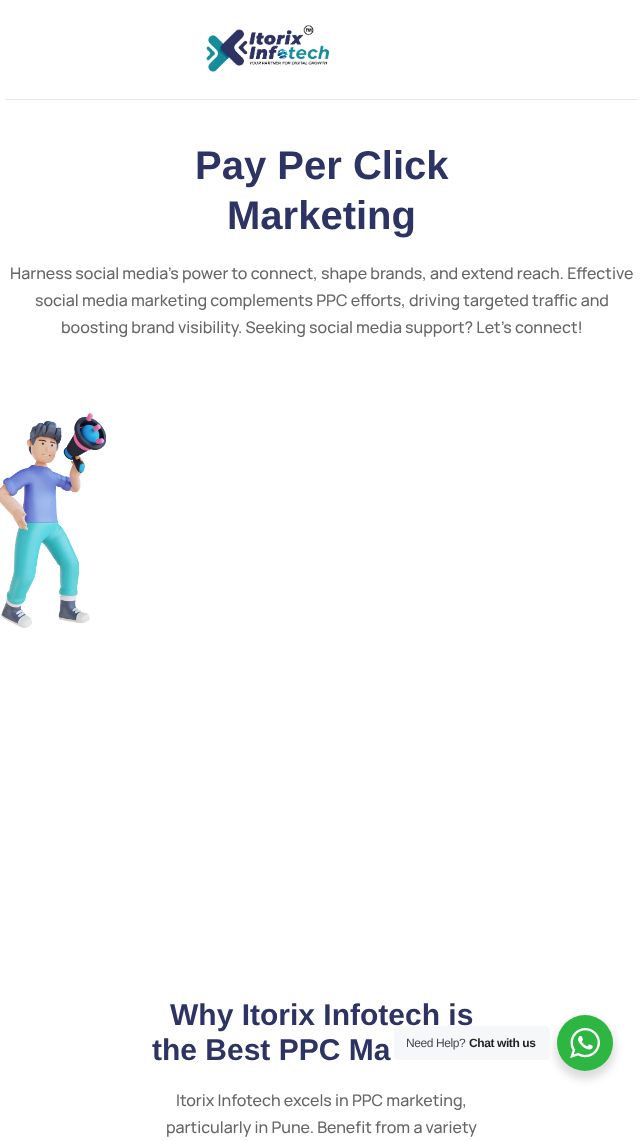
<svg xmlns="http://www.w3.org/2000/svg" width="643" height="1141">
	<rect width="100%" height="100%" fill="#FFFFFF" />
	<rect x="5" y="99" width="633" height="1" fill="#E6E6E6" />
	<image x="206" y="25" width="124" height="47" href="assets/img1.png" />
	<g font-family="Liberation Sans" font-size="40" font-weight="700" fill="#2D3363">
		<text x="195" y="179">Pay Per Click</text>
		<text x="227" y="229">Marketing</text>
	</g>
	<g font-family="Manrope" font-size="16" font-weight="500" fill="#666666">
		<text x="10" y="279">Harness social media’s power to connect, shape brands, and extend reach. Effective</text>
		<text x="35" y="306">social media marketing complements PPC efforts, driving targeted traffic and</text>
		<text x="61" y="333">boosting brand visibility. Seeking social media support? Let’s connect!</text>
	</g>
	<image x="0" y="413" width="106" height="215" href="assets/img2.png" />
	<g font-family="Liberation Sans" font-size="30" font-weight="700" fill="#2D3363">
		<text x="170" y="1025">Why Itorix Infotech is</text>
		<text x="152" y="1060">the Best PPC Ma</text>
	</g>
	<g font-family="Manrope" font-size="16" font-weight="500" fill="#666666">
		<text x="176" y="1106">Itorix Infotech excels in PPC marketing,</text>
		<text x="166" y="1133">particularly in Pune. Benefit from a variety</text>
	</g>
	<rect x="555" y="1019" width="60" height="60" rx="30" fill="#000000" fill-opacity="0.14" filter="blur(4px)" />
	<rect x="394" y="1026" width="156" height="34" rx="4" fill="#F5F7F9" />
	<text x="406" y="1047" font-family="Liberation Sans" font-size="12" letter-spacing="-0.4" fill="#43474E">Need Help?</text>
	<text x="469" y="1047" font-family="Liberation Sans" font-size="12" font-weight="700" letter-spacing="-0.4" fill="#232323">Chat with us</text>
	<circle cx="585" cy="1043" r="28" fill="#2DB742" />
	<image x="570" y="1028" width="30" height="30" href="assets/img3.png" />
</svg>
